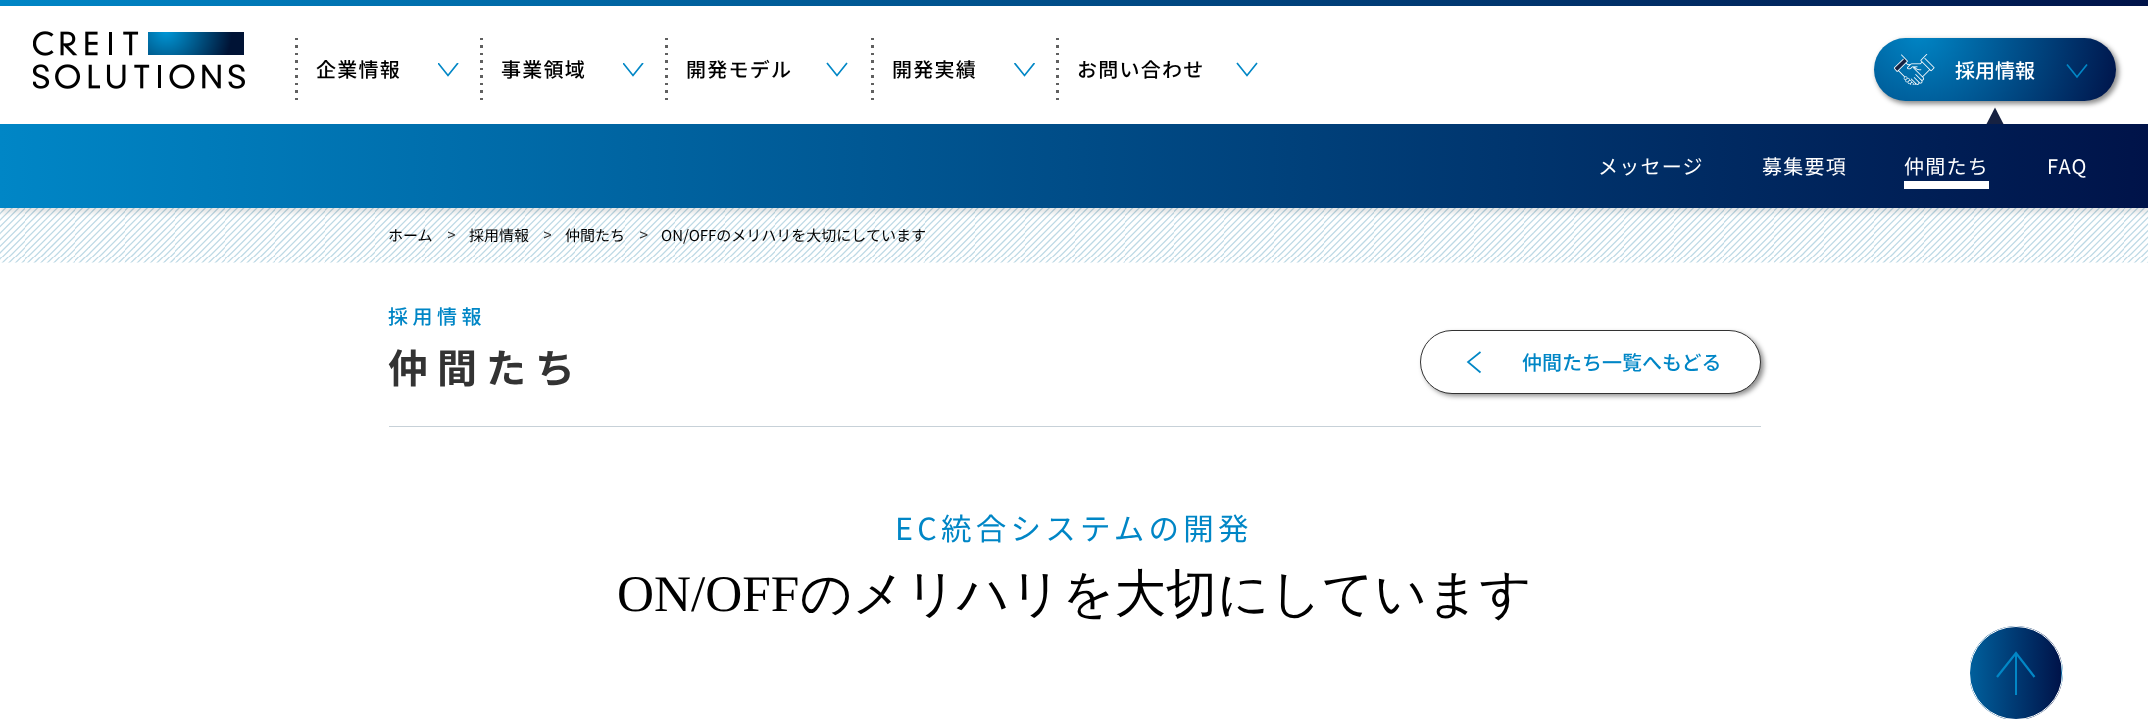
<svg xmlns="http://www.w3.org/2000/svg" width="2148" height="719">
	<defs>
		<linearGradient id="g1" gradientUnits="userSpaceOnUse" x1="0" y1="3.1" x2="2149" y2="3.1"><stop offset="0" stop-color="#0086C6" /><stop offset="1" stop-color="#001349" /></linearGradient>
		<clipPath id="clip1"><rect x="438" y="63" width="21" height="15" /></clipPath>
		<linearGradient id="g2" gradientUnits="userSpaceOnUse" x1="296" y1="40" x2="296" y2="33"><stop offset="0" stop-color="#606060" /><stop offset="0.33" stop-color="#606060" /><stop offset="0.33" stop-color="#FFFFFF" /><stop offset="1" stop-color="#FFFFFF" /></linearGradient>
		<linearGradient id="g3" gradientUnits="userSpaceOnUse" x1="296" y1="48" x2="296" y2="40"><stop offset="0" stop-color="#606060" /><stop offset="0.33" stop-color="#606060" /><stop offset="0.33" stop-color="#FFFFFF" /><stop offset="1" stop-color="#FFFFFF" /></linearGradient>
		<linearGradient id="g4" gradientUnits="userSpaceOnUse" x1="296" y1="55" x2="296" y2="48"><stop offset="0" stop-color="#606060" /><stop offset="0.33" stop-color="#606060" /><stop offset="0.33" stop-color="#FFFFFF" /><stop offset="1" stop-color="#FFFFFF" /></linearGradient>
		<linearGradient id="g5" gradientUnits="userSpaceOnUse" x1="296" y1="63" x2="296" y2="55"><stop offset="0" stop-color="#606060" /><stop offset="0.33" stop-color="#606060" /><stop offset="0.33" stop-color="#FFFFFF" /><stop offset="1" stop-color="#FFFFFF" /></linearGradient>
		<linearGradient id="g6" gradientUnits="userSpaceOnUse" x1="296" y1="70" x2="296" y2="63"><stop offset="0" stop-color="#606060" /><stop offset="0.33" stop-color="#606060" /><stop offset="0.33" stop-color="#FFFFFF" /><stop offset="1" stop-color="#FFFFFF" /></linearGradient>
		<linearGradient id="g7" gradientUnits="userSpaceOnUse" x1="296" y1="78" x2="296" y2="70"><stop offset="0" stop-color="#606060" /><stop offset="0.33" stop-color="#606060" /><stop offset="0.33" stop-color="#FFFFFF" /><stop offset="1" stop-color="#FFFFFF" /></linearGradient>
		<linearGradient id="g8" gradientUnits="userSpaceOnUse" x1="296" y1="85" x2="296" y2="78"><stop offset="0" stop-color="#606060" /><stop offset="0.33" stop-color="#606060" /><stop offset="0.33" stop-color="#FFFFFF" /><stop offset="1" stop-color="#FFFFFF" /></linearGradient>
		<linearGradient id="g9" gradientUnits="userSpaceOnUse" x1="296" y1="93" x2="296" y2="85"><stop offset="0" stop-color="#606060" /><stop offset="0.33" stop-color="#606060" /><stop offset="0.33" stop-color="#FFFFFF" /><stop offset="1" stop-color="#FFFFFF" /></linearGradient>
		<linearGradient id="g10" gradientUnits="userSpaceOnUse" x1="296" y1="100" x2="296" y2="93"><stop offset="0" stop-color="#606060" /><stop offset="0.33" stop-color="#606060" /><stop offset="0.33" stop-color="#FFFFFF" /><stop offset="1" stop-color="#FFFFFF" /></linearGradient>
		<clipPath id="clip2"><rect x="623" y="63" width="21" height="15" /></clipPath>
		<linearGradient id="g11" gradientUnits="userSpaceOnUse" x1="481" y1="40" x2="481" y2="33"><stop offset="0" stop-color="#606060" /><stop offset="0.33" stop-color="#606060" /><stop offset="0.33" stop-color="#FFFFFF" /><stop offset="1" stop-color="#FFFFFF" /></linearGradient>
		<linearGradient id="g12" gradientUnits="userSpaceOnUse" x1="481" y1="48" x2="481" y2="40"><stop offset="0" stop-color="#606060" /><stop offset="0.33" stop-color="#606060" /><stop offset="0.33" stop-color="#FFFFFF" /><stop offset="1" stop-color="#FFFFFF" /></linearGradient>
		<linearGradient id="g13" gradientUnits="userSpaceOnUse" x1="481" y1="55" x2="481" y2="48"><stop offset="0" stop-color="#606060" /><stop offset="0.33" stop-color="#606060" /><stop offset="0.33" stop-color="#FFFFFF" /><stop offset="1" stop-color="#FFFFFF" /></linearGradient>
		<linearGradient id="g14" gradientUnits="userSpaceOnUse" x1="481" y1="63" x2="481" y2="55"><stop offset="0" stop-color="#606060" /><stop offset="0.33" stop-color="#606060" /><stop offset="0.33" stop-color="#FFFFFF" /><stop offset="1" stop-color="#FFFFFF" /></linearGradient>
		<linearGradient id="g15" gradientUnits="userSpaceOnUse" x1="481" y1="70" x2="481" y2="63"><stop offset="0" stop-color="#606060" /><stop offset="0.33" stop-color="#606060" /><stop offset="0.33" stop-color="#FFFFFF" /><stop offset="1" stop-color="#FFFFFF" /></linearGradient>
		<linearGradient id="g16" gradientUnits="userSpaceOnUse" x1="481" y1="78" x2="481" y2="70"><stop offset="0" stop-color="#606060" /><stop offset="0.33" stop-color="#606060" /><stop offset="0.33" stop-color="#FFFFFF" /><stop offset="1" stop-color="#FFFFFF" /></linearGradient>
		<linearGradient id="g17" gradientUnits="userSpaceOnUse" x1="481" y1="85" x2="481" y2="78"><stop offset="0" stop-color="#606060" /><stop offset="0.33" stop-color="#606060" /><stop offset="0.33" stop-color="#FFFFFF" /><stop offset="1" stop-color="#FFFFFF" /></linearGradient>
		<linearGradient id="g18" gradientUnits="userSpaceOnUse" x1="481" y1="93" x2="481" y2="85"><stop offset="0" stop-color="#606060" /><stop offset="0.33" stop-color="#606060" /><stop offset="0.33" stop-color="#FFFFFF" /><stop offset="1" stop-color="#FFFFFF" /></linearGradient>
		<linearGradient id="g19" gradientUnits="userSpaceOnUse" x1="481" y1="100" x2="481" y2="93"><stop offset="0" stop-color="#606060" /><stop offset="0.33" stop-color="#606060" /><stop offset="0.33" stop-color="#FFFFFF" /><stop offset="1" stop-color="#FFFFFF" /></linearGradient>
		<linearGradient id="g20" gradientUnits="userSpaceOnUse" x1="666" y1="40" x2="666" y2="33"><stop offset="0" stop-color="#606060" /><stop offset="0.33" stop-color="#606060" /><stop offset="0.33" stop-color="#FFFFFF" /><stop offset="1" stop-color="#FFFFFF" /></linearGradient>
		<linearGradient id="g21" gradientUnits="userSpaceOnUse" x1="666" y1="48" x2="666" y2="40"><stop offset="0" stop-color="#606060" /><stop offset="0.33" stop-color="#606060" /><stop offset="0.33" stop-color="#FFFFFF" /><stop offset="1" stop-color="#FFFFFF" /></linearGradient>
		<linearGradient id="g22" gradientUnits="userSpaceOnUse" x1="666" y1="55" x2="666" y2="48"><stop offset="0" stop-color="#606060" /><stop offset="0.33" stop-color="#606060" /><stop offset="0.33" stop-color="#FFFFFF" /><stop offset="1" stop-color="#FFFFFF" /></linearGradient>
		<linearGradient id="g23" gradientUnits="userSpaceOnUse" x1="666" y1="63" x2="666" y2="55"><stop offset="0" stop-color="#606060" /><stop offset="0.33" stop-color="#606060" /><stop offset="0.33" stop-color="#FFFFFF" /><stop offset="1" stop-color="#FFFFFF" /></linearGradient>
		<linearGradient id="g24" gradientUnits="userSpaceOnUse" x1="666" y1="70" x2="666" y2="63"><stop offset="0" stop-color="#606060" /><stop offset="0.33" stop-color="#606060" /><stop offset="0.33" stop-color="#FFFFFF" /><stop offset="1" stop-color="#FFFFFF" /></linearGradient>
		<linearGradient id="g25" gradientUnits="userSpaceOnUse" x1="666" y1="78" x2="666" y2="70"><stop offset="0" stop-color="#606060" /><stop offset="0.33" stop-color="#606060" /><stop offset="0.33" stop-color="#FFFFFF" /><stop offset="1" stop-color="#FFFFFF" /></linearGradient>
		<linearGradient id="g26" gradientUnits="userSpaceOnUse" x1="666" y1="85" x2="666" y2="78"><stop offset="0" stop-color="#606060" /><stop offset="0.33" stop-color="#606060" /><stop offset="0.33" stop-color="#FFFFFF" /><stop offset="1" stop-color="#FFFFFF" /></linearGradient>
		<linearGradient id="g27" gradientUnits="userSpaceOnUse" x1="666" y1="93" x2="666" y2="85"><stop offset="0" stop-color="#606060" /><stop offset="0.33" stop-color="#606060" /><stop offset="0.33" stop-color="#FFFFFF" /><stop offset="1" stop-color="#FFFFFF" /></linearGradient>
		<linearGradient id="g28" gradientUnits="userSpaceOnUse" x1="666" y1="100" x2="666" y2="93"><stop offset="0" stop-color="#606060" /><stop offset="0.33" stop-color="#606060" /><stop offset="0.33" stop-color="#FFFFFF" /><stop offset="1" stop-color="#FFFFFF" /></linearGradient>
		<clipPath id="clip3"><rect x="1014" y="63" width="21" height="15" /></clipPath>
		<linearGradient id="g29" gradientUnits="userSpaceOnUse" x1="873" y1="40" x2="873" y2="33"><stop offset="0" stop-color="#606060" /><stop offset="0.33" stop-color="#606060" /><stop offset="0.33" stop-color="#FFFFFF" /><stop offset="1" stop-color="#FFFFFF" /></linearGradient>
		<linearGradient id="g30" gradientUnits="userSpaceOnUse" x1="873" y1="48" x2="873" y2="40"><stop offset="0" stop-color="#606060" /><stop offset="0.33" stop-color="#606060" /><stop offset="0.33" stop-color="#FFFFFF" /><stop offset="1" stop-color="#FFFFFF" /></linearGradient>
		<linearGradient id="g31" gradientUnits="userSpaceOnUse" x1="873" y1="55" x2="873" y2="48"><stop offset="0" stop-color="#606060" /><stop offset="0.33" stop-color="#606060" /><stop offset="0.33" stop-color="#FFFFFF" /><stop offset="1" stop-color="#FFFFFF" /></linearGradient>
		<linearGradient id="g32" gradientUnits="userSpaceOnUse" x1="873" y1="63" x2="873" y2="55"><stop offset="0" stop-color="#606060" /><stop offset="0.33" stop-color="#606060" /><stop offset="0.33" stop-color="#FFFFFF" /><stop offset="1" stop-color="#FFFFFF" /></linearGradient>
		<linearGradient id="g33" gradientUnits="userSpaceOnUse" x1="873" y1="70" x2="873" y2="63"><stop offset="0" stop-color="#606060" /><stop offset="0.33" stop-color="#606060" /><stop offset="0.33" stop-color="#FFFFFF" /><stop offset="1" stop-color="#FFFFFF" /></linearGradient>
		<linearGradient id="g34" gradientUnits="userSpaceOnUse" x1="873" y1="78" x2="873" y2="70"><stop offset="0" stop-color="#606060" /><stop offset="0.33" stop-color="#606060" /><stop offset="0.33" stop-color="#FFFFFF" /><stop offset="1" stop-color="#FFFFFF" /></linearGradient>
		<linearGradient id="g35" gradientUnits="userSpaceOnUse" x1="873" y1="85" x2="873" y2="78"><stop offset="0" stop-color="#606060" /><stop offset="0.33" stop-color="#606060" /><stop offset="0.33" stop-color="#FFFFFF" /><stop offset="1" stop-color="#FFFFFF" /></linearGradient>
		<linearGradient id="g36" gradientUnits="userSpaceOnUse" x1="873" y1="93" x2="873" y2="85"><stop offset="0" stop-color="#606060" /><stop offset="0.33" stop-color="#606060" /><stop offset="0.33" stop-color="#FFFFFF" /><stop offset="1" stop-color="#FFFFFF" /></linearGradient>
		<linearGradient id="g37" gradientUnits="userSpaceOnUse" x1="873" y1="100" x2="873" y2="93"><stop offset="0" stop-color="#606060" /><stop offset="0.33" stop-color="#606060" /><stop offset="0.33" stop-color="#FFFFFF" /><stop offset="1" stop-color="#FFFFFF" /></linearGradient>
		<linearGradient id="g38" gradientUnits="userSpaceOnUse" x1="1058" y1="40" x2="1058" y2="33"><stop offset="0" stop-color="#606060" /><stop offset="0.33" stop-color="#606060" /><stop offset="0.33" stop-color="#FFFFFF" /><stop offset="1" stop-color="#FFFFFF" /></linearGradient>
		<linearGradient id="g39" gradientUnits="userSpaceOnUse" x1="1058" y1="48" x2="1058" y2="40"><stop offset="0" stop-color="#606060" /><stop offset="0.33" stop-color="#606060" /><stop offset="0.33" stop-color="#FFFFFF" /><stop offset="1" stop-color="#FFFFFF" /></linearGradient>
		<linearGradient id="g40" gradientUnits="userSpaceOnUse" x1="1058" y1="55" x2="1058" y2="48"><stop offset="0" stop-color="#606060" /><stop offset="0.33" stop-color="#606060" /><stop offset="0.33" stop-color="#FFFFFF" /><stop offset="1" stop-color="#FFFFFF" /></linearGradient>
		<linearGradient id="g41" gradientUnits="userSpaceOnUse" x1="1058" y1="63" x2="1058" y2="55"><stop offset="0" stop-color="#606060" /><stop offset="0.33" stop-color="#606060" /><stop offset="0.33" stop-color="#FFFFFF" /><stop offset="1" stop-color="#FFFFFF" /></linearGradient>
		<linearGradient id="g42" gradientUnits="userSpaceOnUse" x1="1058" y1="70" x2="1058" y2="63"><stop offset="0" stop-color="#606060" /><stop offset="0.33" stop-color="#606060" /><stop offset="0.33" stop-color="#FFFFFF" /><stop offset="1" stop-color="#FFFFFF" /></linearGradient>
		<linearGradient id="g43" gradientUnits="userSpaceOnUse" x1="1058" y1="78" x2="1058" y2="70"><stop offset="0" stop-color="#606060" /><stop offset="0.33" stop-color="#606060" /><stop offset="0.33" stop-color="#FFFFFF" /><stop offset="1" stop-color="#FFFFFF" /></linearGradient>
		<linearGradient id="g44" gradientUnits="userSpaceOnUse" x1="1058" y1="85" x2="1058" y2="78"><stop offset="0" stop-color="#606060" /><stop offset="0.33" stop-color="#606060" /><stop offset="0.33" stop-color="#FFFFFF" /><stop offset="1" stop-color="#FFFFFF" /></linearGradient>
		<linearGradient id="g45" gradientUnits="userSpaceOnUse" x1="1058" y1="93" x2="1058" y2="85"><stop offset="0" stop-color="#606060" /><stop offset="0.33" stop-color="#606060" /><stop offset="0.33" stop-color="#FFFFFF" /><stop offset="1" stop-color="#FFFFFF" /></linearGradient>
		<linearGradient id="g46" gradientUnits="userSpaceOnUse" x1="1058" y1="100" x2="1058" y2="93"><stop offset="0" stop-color="#606060" /><stop offset="0.33" stop-color="#606060" /><stop offset="0.33" stop-color="#FFFFFF" /><stop offset="1" stop-color="#FFFFFF" /></linearGradient>
		<radialGradient id="g47" gradientUnits="userSpaceOnUse" cx="1919" cy="32" r="209"><stop offset="0" stop-color="#0086C6" /><stop offset="1" stop-color="#001349" /></radialGradient>
		<linearGradient id="g48" gradientUnits="userSpaceOnUse" x1="0" y1="166" x2="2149" y2="166"><stop offset="0" stop-color="#0086C6" /><stop offset="1" stop-color="#001349" /></linearGradient>
		<clipPath id="clip4"><rect x="1969" y="626" width="94" height="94" rx="47" /></clipPath>
		<linearGradient id="g49" gradientUnits="userSpaceOnUse" x1="1924" y1="673" x2="2061" y2="673"><stop offset="0" stop-color="#0086C6" /><stop offset="1" stop-color="#001349" /></linearGradient>
		<linearGradient id="g50" gradientUnits="userSpaceOnUse" x1="2016" y1="673" x2="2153" y2="673"><stop offset="0" stop-color="#0086C6" /><stop offset="1" stop-color="#001349" /></linearGradient>
	</defs>
	<rect width="100%" height="100%" fill="#FFFFFF" />
	<rect x="0" y="0" width="2148" height="6" fill="url(#g1)" />
	<image x="33" y="31" width="212" height="58" href="assets/img1.png" />
	<g clip-path="url(#clip1)">
		<path d="M458 63L448 75.5L438 63" fill="none" stroke="#0287C6" stroke-width="1.7" />
	</g>
	<rect x="295" y="38" width="3" height="2" fill="url(#g2)" />
	<rect x="295" y="40" width="3" height="8" fill="url(#g3)" />
	<rect x="295" y="48" width="3" height="7" fill="url(#g4)" />
	<rect x="295" y="55" width="3" height="8" fill="url(#g5)" />
	<rect x="295" y="63" width="3" height="7" fill="url(#g6)" />
	<rect x="295" y="70" width="3" height="8" fill="url(#g7)" />
	<rect x="295" y="78" width="3" height="7" fill="url(#g8)" />
	<rect x="295" y="85" width="3" height="8" fill="url(#g9)" />
	<rect x="295" y="93" width="3" height="7" fill="url(#g10)" />
	<text x="316" y="77" font-family="Noto Sans JP" font-size="20" font-weight="500" letter-spacing="1.25" fill="#000000">企業情報</text>
	<g clip-path="url(#clip2)">
		<path d="M643 63L633 75.5L623 63" fill="none" stroke="#0287C6" stroke-width="1.7" />
	</g>
	<rect x="480" y="38" width="3" height="2" fill="url(#g11)" />
	<rect x="480" y="40" width="3" height="8" fill="url(#g12)" />
	<rect x="480" y="48" width="3" height="7" fill="url(#g13)" />
	<rect x="480" y="55" width="3" height="8" fill="url(#g14)" />
	<rect x="480" y="63" width="3" height="7" fill="url(#g15)" />
	<rect x="480" y="70" width="3" height="8" fill="url(#g16)" />
	<rect x="480" y="78" width="3" height="7" fill="url(#g17)" />
	<rect x="480" y="85" width="3" height="8" fill="url(#g18)" />
	<rect x="480" y="93" width="3" height="7" fill="url(#g19)" />
	<text x="501" y="77" font-family="Noto Sans JP" font-size="20" font-weight="500" letter-spacing="1.25" fill="#000000">事業領域</text>
	<path d="M847 63L837 75.5L827 63" fill="none" stroke="#0287C6" stroke-width="1.7" />
	<rect x="665" y="38" width="3" height="2" fill="url(#g20)" />
	<rect x="665" y="40" width="3" height="8" fill="url(#g21)" />
	<rect x="665" y="48" width="3" height="7" fill="url(#g22)" />
	<rect x="665" y="55" width="3" height="8" fill="url(#g23)" />
	<rect x="665" y="63" width="3" height="7" fill="url(#g24)" />
	<rect x="665" y="70" width="3" height="8" fill="url(#g25)" />
	<rect x="665" y="78" width="3" height="7" fill="url(#g26)" />
	<rect x="665" y="85" width="3" height="8" fill="url(#g27)" />
	<rect x="665" y="93" width="3" height="7" fill="url(#g28)" />
	<text x="686" y="77" font-family="Noto Sans JP" font-size="20" font-weight="500" letter-spacing="1.25" fill="#000000">開発モデル</text>
	<g clip-path="url(#clip3)">
		<path d="M1034.5 63L1024.5 75.5L1014.5 63" fill="none" stroke="#0287C6" stroke-width="1.7" />
	</g>
	<rect x="871" y="38" width="3" height="2" fill="url(#g29)" />
	<rect x="871" y="40" width="3" height="8" fill="url(#g30)" />
	<rect x="871" y="48" width="3" height="7" fill="url(#g31)" />
	<rect x="871" y="55" width="3" height="8" fill="url(#g32)" />
	<rect x="871" y="63" width="3" height="7" fill="url(#g33)" />
	<rect x="871" y="70" width="3" height="8" fill="url(#g34)" />
	<rect x="871" y="78" width="3" height="7" fill="url(#g35)" />
	<rect x="871" y="85" width="3" height="8" fill="url(#g36)" />
	<rect x="871" y="93" width="3" height="7" fill="url(#g37)" />
	<text x="892" y="77" font-family="Noto Sans JP" font-size="20" font-weight="500" letter-spacing="1.25" fill="#000000">開発実績</text>
	<path d="M1257 63L1247 75.5L1237 63" fill="none" stroke="#0287C6" stroke-width="1.7" />
	<rect x="1056" y="38" width="3" height="2" fill="url(#g38)" />
	<rect x="1056" y="40" width="3" height="8" fill="url(#g39)" />
	<rect x="1056" y="48" width="3" height="7" fill="url(#g40)" />
	<rect x="1056" y="55" width="3" height="8" fill="url(#g41)" />
	<rect x="1056" y="63" width="3" height="7" fill="url(#g42)" />
	<rect x="1056" y="70" width="3" height="8" fill="url(#g43)" />
	<rect x="1056" y="78" width="3" height="7" fill="url(#g44)" />
	<rect x="1056" y="85" width="3" height="8" fill="url(#g45)" />
	<rect x="1056" y="93" width="3" height="7" fill="url(#g46)" />
	<text x="1077" y="77" font-family="Noto Sans JP" font-size="20" font-weight="500" letter-spacing="1.25" fill="#000000">お問い合わせ</text>
	<rect x="1876" y="40" width="243" height="64" rx="32" fill="#000000" fill-opacity="0.45" filter="blur(2.5px)" />
	<rect x="1874" y="38" width="242" height="63" rx="31.5" fill="url(#g47)" />
	<image x="1894" y="54" width="41" height="31" href="assets/img2.png" />
	<text x="1955" y="78" font-family="Noto Sans JP" font-size="20" font-weight="500" fill="#FFFFFF">採用情報</text>
	<path d="M2087 64.5L2077 77L2067 64.5" fill="none" stroke="#0287C6" stroke-width="1.7" />
	<path d="M2004 125H1986L1995 107.5Z" fill="#162141" />
	<image x="0" y="208" width="2148" height="55" href="assets/img3.png" />
	<rect x="0" y="129" width="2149" height="84" fill="#000000" fill-opacity="0.1" filter="blur(2.5px)" />
	<rect x="0" y="124" width="2148" height="84" fill="url(#g48)" />
	<g font-family="Noto Sans JP" font-size="20" letter-spacing="1.25" fill="#FFFFFF">
		<text x="1598" y="174">メッセージ</text>
		<text x="1762" y="174">募集要項</text>
		<text x="1904" y="174">仲間たち</text>
	</g>
	<rect x="1904" y="181" width="85" height="8" fill="#FFFFFF" />
	<text x="2047" y="174" font-family="Noto Sans JP" font-size="20" letter-spacing="1.25" fill="#FFFFFF">FAQ</text>
	<text x="388" y="241" font-family="Noto Sans JP" font-size="15" fill="#000000">ホーム</text>
	<image x="448" y="231" width="7" height="8" href="assets/img4.png" />
	<text x="469" y="241" font-family="Noto Sans JP" font-size="15" fill="#000000">採用情報</text>
	<image x="544" y="231" width="7" height="8" href="assets/img5.png" />
	<text x="565" y="241" font-family="Noto Sans JP" font-size="15" fill="#000000">仲間たち</text>
	<image x="640" y="231" width="8" height="8" href="assets/img6.png" />
	<text x="661" y="241" font-family="Noto Sans JP" font-size="15" fill="#000000">ON/OFFのメリハリを大切にしています</text>
	<rect x="389" y="426" width="1372" height="1" fill="#C7D1D8" />
	<text x="388" y="324" font-family="Noto Sans JP" font-size="20" font-weight="500" letter-spacing="4.5" fill="#0086C6">採用情報</text>
	<text x="388" y="383" font-family="Noto Sans JP" font-size="40" font-weight="700" letter-spacing="9" fill="#333333">仲間たち</text>
	<rect x="1423" y="333" width="341" height="63" rx="31.5" fill="#000000" fill-opacity="0.45" filter="blur(2.5px)" />
	<rect x="1420.5" y="330.5" width="340" height="63" rx="31.5" fill="#FFFFFF" stroke="#333333" />
	<path d="M1480.5 372.5L1468 362L1480.5 352" fill="none" stroke="#0287C6" stroke-width="1.7" />
	<text x="1522" y="370" font-family="Noto Sans JP" font-size="20" font-weight="500" fill="#0086C6">仲間たち一覧へもどる</text>
	<text x="895" y="540" font-family="Noto Sans JP" font-size="30.5" letter-spacing="4.25" fill="#0086C6">EC統合システムの開発</text>
	<text x="617" y="611" font-family="Liberation Serif" font-size="51.25" fill="#000000">ON/OFF</text>
	<text x="800" y="611" font-family="WenQuanYi Zen Hei" font-size="51.25" font-weight="500" fill="#000000">のメリハリを大切にしています</text>
	<g clip-path="url(#clip4)">
		<rect x="1970" y="626" width="91" height="93" fill="url(#g49)" />
		<rect x="2061" y="659" width="2" height="28" fill="url(#g50)" />
	</g>
	<circle cx="2016" cy="673" r="46.5" fill="none" stroke="#FFFFFF" />
	<path d="M1997 677L2016 653L2034.5 677" fill="none" stroke="#0287C6" stroke-width="2.2" />
	<rect x="2015" y="653" width="2" height="42" fill="#0287C6" />
</svg>
